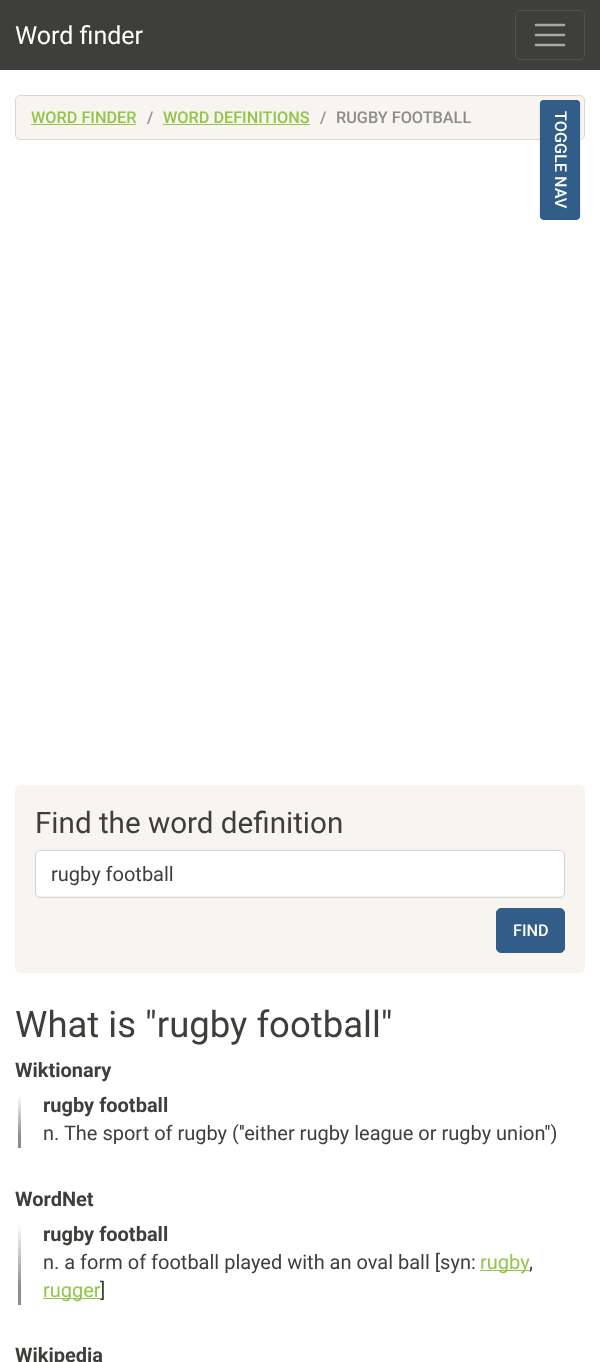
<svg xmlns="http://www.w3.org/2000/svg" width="600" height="1362">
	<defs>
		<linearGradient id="g1" gradientUnits="userSpaceOnUse" x1="19" y1="1095" x2="19" y2="1150"><stop offset="0" stop-color="#FFFFFF" /><stop offset="0.75" stop-color="#8E8C84" /></linearGradient>
		<linearGradient id="g2" gradientUnits="userSpaceOnUse" x1="19" y1="1224" x2="19" y2="1308"><stop offset="0" stop-color="#FFFFFF" /><stop offset="0.75" stop-color="#8E8C84" /></linearGradient>
	</defs>
	<rect width="100%" height="100%" fill="#FFFFFF" />
	<rect x="0" y="0" width="600" height="70" fill="#3E3F3A" />
	<text x="15" y="44" font-family="Roboto" font-size="25" fill="#FFFFFF">Word finder</text>
	<rect x="515.5" y="10.5" width="69" height="49" rx="4.5" fill="none" stroke="#51524E" />
	<path d="M536 25H564M536 35H564M536 45H564" fill="none" stroke="#A8A9A6" stroke-width="2.5" stroke-linecap="round" />
	<rect x="15.5" y="95.5" width="569" height="44" rx="4.5" fill="#F8F5F0" stroke="#DFD7CA" />
	<text x="31" y="123" font-family="Roboto" font-size="16.25" font-weight="500" fill="#93C54B">WORD FINDER</text>
	<rect x="31" y="124" width="105" height="1" fill="#93C54B" />
	<text x="147" y="123" font-family="Roboto" font-size="16.25" font-weight="500" fill="#8E8C84">/</text>
	<text x="163" y="123" font-family="Roboto" font-size="16.25" font-weight="500" fill="#93C54B">WORD DEFINITIONS</text>
	<rect x="163" y="124" width="147" height="1" fill="#93C54B" />
	<g font-family="Roboto" font-size="16.25" font-weight="500" fill="#8E8C84">
		<text x="320" y="123">/</text>
		<text x="336" y="123">RUGBY FOOTBALL</text>
	</g>
	<path d="M580 104V216C580 218 578 220 576 220H544C542 220 540 218 540 216V104C540 102 542 100 544 100H576C578 100 580 102 580 104Z" fill="#325D88" />
	<path d="M579.5 104V216C579.5 217.5 578 219 576 219H544C542 219 540.5 217.5 540.5 216V104C540.5 102 542 100.5 544 100.5H576C578 100.5 579.5 102 579.5 104Z" fill="none" stroke="#325D88" stroke-width="1.2" />
	<text x="555" y="111" transform="rotate(90 555 111)" font-family="Roboto" font-size="16.25" font-weight="500" fill="#FFFFFF">TOGGLE NAV</text>
	<rect x="15" y="785" width="570" height="188" rx="6" fill="#F8F5F0" />
	<text x="35" y="833" font-family="Roboto" font-size="29.6" fill="#3E3F3A">Find the word definition</text>
	<rect x="36" y="851" width="528" height="45" rx="4" fill="#FFFFFF" />
	<rect x="35.5" y="850.5" width="529" height="47" rx="4.5" fill="none" stroke="#CED4DA" />
	<text x="51" y="881" font-family="Roboto" font-size="20" fill="#3E3F3A">rugby football</text>
	<rect x="496.5" y="908.5" width="68" height="44" rx="4.5" fill="#325D88" stroke="#325D88" />
	<text x="513" y="936" font-family="Roboto" font-size="16.25" font-weight="500" fill="#FFFFFF">FIND</text>
	<text x="15" y="1037" font-family="Roboto" font-size="36.5" fill="#3E3F3A">What is "rugby football"</text>
	<text x="15" y="1077" font-family="Roboto" font-size="20" font-weight="700" fill="#3E3F3A">Wiktionary</text>
	<rect x="18" y="1095" width="3" height="53" fill="url(#g1)" />
	<text x="43" y="1112" font-family="Roboto" font-size="20" font-weight="700" fill="#3E3F3A">rugby football</text>
	<text x="43" y="1140" font-family="Roboto" font-size="20" fill="#3E3F3A">n. The sport of rugby (''either rugby league or rugby union'')</text>
	<text x="15" y="1206" font-family="Roboto" font-size="20" font-weight="700" fill="#3E3F3A">WordNet</text>
	<rect x="18" y="1224" width="3" height="81" fill="url(#g2)" />
	<text x="43" y="1241" font-family="Roboto" font-size="20" font-weight="700" fill="#3E3F3A">rugby football</text>
	<text x="43" y="1269" font-family="Roboto" font-size="20" fill="#3E3F3A">n. a form of football played with an oval ball [syn:</text>
	<rect x="480" y="1270" width="49" height="1" fill="#93C54B" />
	<text x="480" y="1269" font-family="Roboto" font-size="20" fill="#93C54B">rugby</text>
	<text x="529" y="1269" font-family="Roboto" font-size="20" fill="#3E3F3A">,</text>
	<rect x="43" y="1298" width="57" height="1" fill="#93C54B" />
	<text x="43" y="1297" font-family="Roboto" font-size="20" fill="#93C54B">rugger</text>
	<text x="100" y="1297" font-family="Roboto" font-size="20" fill="#3E3F3A">]</text>
	<text x="15" y="1362" font-family="Roboto" font-size="20" font-weight="700" fill="#3E3F3A">Wikipedia</text>
</svg>
